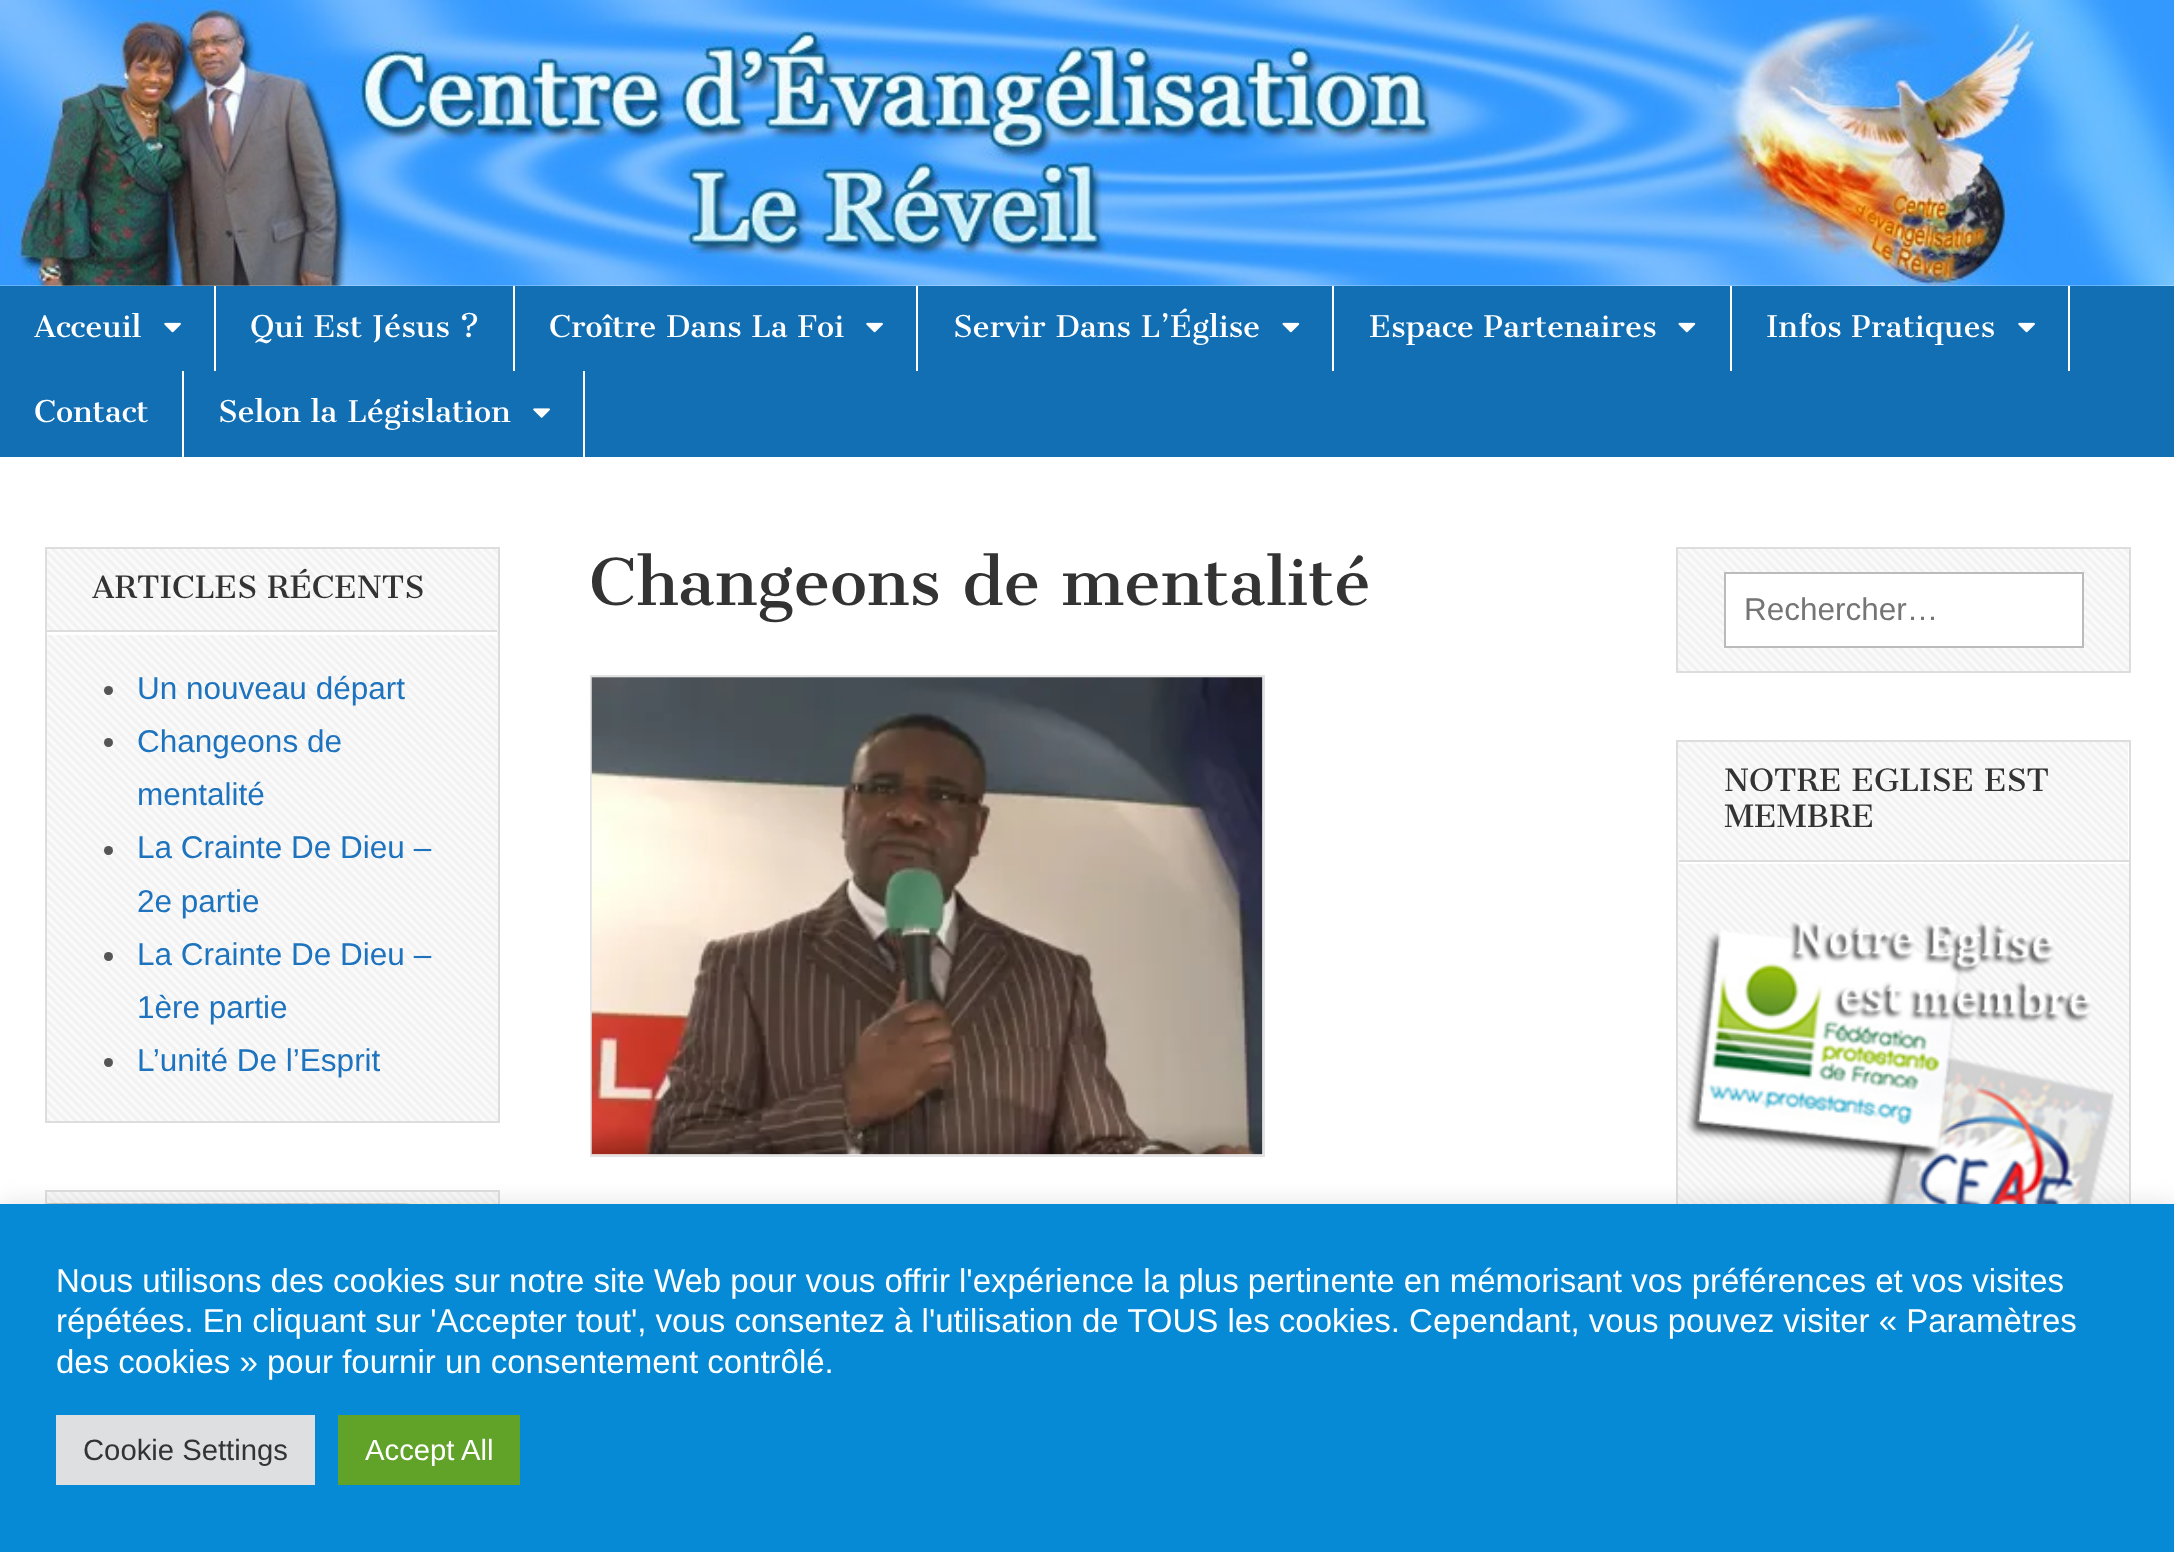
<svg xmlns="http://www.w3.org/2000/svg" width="2174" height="1552">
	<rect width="100%" height="100%" fill="#FFFFFF" />
	<image x="0" y="0" width="2174" height="286" href="assets/img1.png" />
	<rect x="0" y="286" width="2174" height="171" fill="#126FB4" />
	<rect x="214" y="286" width="2" height="85" fill="#FFFFFF" />
	<text x="34" y="337" font-family="Cantata One" font-size="29.25" fill="#FFFFFF">Acceuil</text>
	<image x="164" y="322" width="17" height="11" href="assets/img2.png" />
	<rect x="513" y="286" width="2" height="85" fill="#FFFFFF" />
	<text x="250" y="337" font-family="Cantata One" font-size="29.25" fill="#FFFFFF">Qui Est Jésus ?</text>
	<rect x="916" y="286" width="2" height="85" fill="#FFFFFF" />
	<text x="549" y="337" font-family="Cantata One" font-size="29.25" fill="#FFFFFF">Croître Dans La Foi</text>
	<image x="866" y="322" width="17" height="11" href="assets/img2.png" />
	<rect x="1332" y="286" width="2" height="85" fill="#FFFFFF" />
	<text x="953" y="337" font-family="Cantata One" font-size="29.25" fill="#FFFFFF">Servir Dans L’Église</text>
	<image x="1282" y="322" width="18" height="11" href="assets/img3.png" />
	<rect x="1730" y="286" width="2" height="85" fill="#FFFFFF" />
	<text x="1369" y="337" font-family="Cantata One" font-size="29.25" fill="#FFFFFF">Espace Partenaires</text>
	<image x="1678" y="322" width="18" height="11" href="assets/img3.png" />
	<rect x="2068" y="286" width="2" height="85" fill="#FFFFFF" />
	<text x="1766" y="337" font-family="Cantata One" font-size="29.25" fill="#FFFFFF">Infos Pratiques</text>
	<image x="2018" y="322" width="17" height="11" href="assets/img2.png" />
	<rect x="182" y="371" width="2" height="86" fill="#FFFFFF" />
	<text x="34" y="422" font-family="Cantata One" font-size="29.25" fill="#FFFFFF">Contact</text>
	<rect x="583" y="371" width="2" height="86" fill="#FFFFFF" />
	<text x="218" y="422" font-family="Cantata One" font-size="29.25" fill="#FFFFFF">Selon la Législation</text>
	<image x="533" y="408" width="17" height="10" href="assets/img4.png" />
	<image x="47" y="549" width="451" height="572" href="assets/img5.png" />
	<rect x="46" y="548" width="453" height="574" fill="none" stroke="#DDDDDD" stroke-width="2" />
	<path d="M47 551V635H497V632H47Z" fill="#FFFFFF" />
	<rect x="47" y="630" width="450" height="2" fill="#DDDDDD" />
	<text x="92" y="598" font-family="Cantata One" font-size="30" fill="#333333">ARTICLES RÉCENTS</text>
	<circle cx="108.5" cy="690.5" r="4.5" fill="#555555" />
	<text x="137" y="699" font-family="Liberation Sans" font-size="31.5" fill="#1E73BE">Un nouveau départ</text>
	<circle cx="108.5" cy="742.5" r="4.5" fill="#555555" />
	<g font-family="Liberation Sans" font-size="31.5" fill="#1E73BE">
		<text x="137" y="752">Changeons de</text>
		<text x="137" y="805">mentalité</text>
	</g>
	<circle cx="108.5" cy="850.5" r="4.5" fill="#555555" />
	<g font-family="Liberation Sans" font-size="31.5" fill="#1E73BE">
		<text x="137" y="858">La Crainte De Dieu –</text>
		<text x="137" y="912">2e partie</text>
	</g>
	<circle cx="108.5" cy="956.5" r="4.5" fill="#555555" />
	<g font-family="Liberation Sans" font-size="31.5" fill="#1E73BE">
		<text x="137" y="965">La Crainte De Dieu –</text>
		<text x="137" y="1018">1ère partie</text>
	</g>
	<circle cx="108.5" cy="1062.5" r="4.5" fill="#555555" />
	<text x="137" y="1071" font-family="Liberation Sans" font-size="31.5" fill="#1E73BE">L’unité De l’Esprit</text>
	<image x="47" y="1192" width="451" height="12" href="assets/img6.png" />
	<rect x="46" y="1191" width="453" height="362" fill="none" stroke="#DDDDDD" stroke-width="2" />
	<image x="47" y="1203" width="451" height="1" href="assets/img7.png" />
	<text x="589" y="605" font-family="Cantata One" font-size="63" fill="#333333">Changeons de mentalité</text>
	<rect x="591" y="676" width="673" height="480" fill="none" stroke="#E2E2E2" stroke-width="2" />
	<image x="591" y="677" width="672" height="478" href="assets/img8.png" />
	<image x="1678" y="549" width="451" height="122" href="assets/img9.png" />
	<rect x="1677" y="548" width="453" height="124" fill="none" stroke="#DDDDDD" stroke-width="2" />
	<rect x="1725" y="573" width="358" height="74" fill="#FFFFFF" stroke="#BBBBBB" stroke-width="2" />
	<text x="1744" y="620" font-family="Liberation Sans" font-size="31.5" fill="#757575">Rechercher…</text>
	<image x="1678" y="742" width="451" height="462" href="assets/img10.png" />
	<rect x="1677" y="741" width="453" height="577" fill="none" stroke="#DDDDDD" stroke-width="2" />
	<path d="M1679 862V864H2129V745H2128V862Z" fill="#FFFFFF" />
	<rect x="1679" y="860" width="450" height="2" fill="#DDDDDD" />
	<g font-family="Cantata One" font-size="30" fill="#333333">
		<text x="1724" y="791">NOTRE EGLISE EST</text>
		<text x="1724" y="827">MEMBRE</text>
	</g>
	<image x="1686" y="921" width="428" height="283" href="assets/img11.png" />
	<rect x="0" y="1202" width="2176" height="348" fill="#ACABAB" fill-opacity="0.3" filter="blur(11px)" />
	<rect x="0" y="1204" width="2174" height="348" fill="#068AD6" />
	<g font-family="Liberation Sans" font-size="33" fill="#FFFFFF">
		<text x="56" y="1292">Nous utilisons des cookies sur notre site Web pour vous offrir l'expérience la plus pertinente en mémorisant vos préférences et vos visites</text>
		<text x="56" y="1332">répétées. En cliquant sur 'Accepter tout', vous consentez à l'utilisation de TOUS les cookies. Cependant, vous pouvez visiter « Paramètres</text>
		<text x="56" y="1373">des cookies » pour fournir un consentement contrôlé.</text>
	</g>
	<rect x="56" y="1415" width="259" height="70" fill="#DEDFE0" />
	<text x="83" y="1460" font-family="Liberation Sans" font-size="29.25" fill="#333333">Cookie Settings</text>
	<rect x="338" y="1415" width="182" height="70" fill="#61A229" />
	<text x="365" y="1460" font-family="Liberation Sans" font-size="29.25" fill="#FFFFFF">Accept All</text>
</svg>
